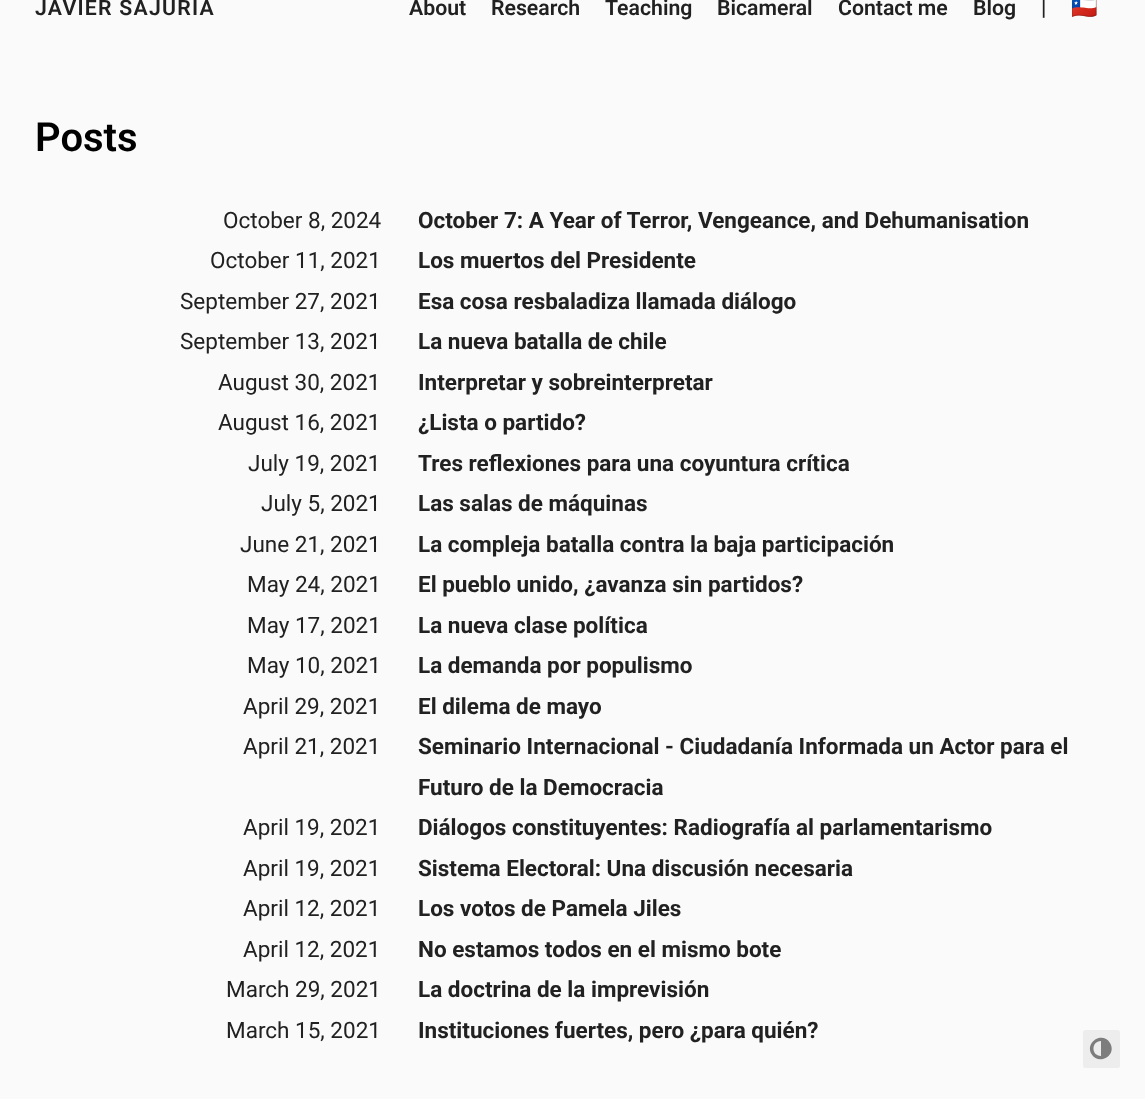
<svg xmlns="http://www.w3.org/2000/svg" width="1145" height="1099">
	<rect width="100%" height="100%" fill="#FAFAFA" />
	<text x="35" y="15" font-family="Roboto" font-size="21.25" font-weight="600" letter-spacing="1.25" fill="#212121">JAVIER SAJURIA</text>
	<g font-family="Roboto" font-size="21.25" font-weight="600" fill="#212121">
		<text x="409" y="15">About</text>
		<text x="491" y="15">Research</text>
		<text x="605" y="15">Teaching</text>
		<text x="717" y="15">Bicameral</text>
		<text x="838" y="15">Contact me</text>
		<text x="973" y="15">Blog</text>
		<text x="1041" y="15">|</text>
	</g>
	<text x="1071" y="15" font-family="Noto Color Emoji" font-size="21.25" font-weight="700" fill="#212121">🇨🇱</text>
	<text x="35" y="151" font-family="Roboto" font-size="40" font-weight="600" fill="#000000">Posts</text>
	<text x="223" y="228" font-family="Roboto" font-size="22.5" fill="#212121">October 8, 2024</text>
	<text x="418" y="228" font-family="Roboto" font-size="22.5" font-weight="700" fill="#212121">October 7: A Year of Terror, Vengeance, and Dehumanisation</text>
	<text x="210" y="268" font-family="Roboto" font-size="22.5" fill="#212121">October 11, 2021</text>
	<text x="418" y="268" font-family="Roboto" font-size="22.5" font-weight="700" fill="#212121">Los muertos del Presidente</text>
	<text x="180" y="309" font-family="Roboto" font-size="22.5" fill="#212121">September 27, 2021</text>
	<text x="418" y="309" font-family="Roboto" font-size="22.5" font-weight="700" fill="#212121">Esa cosa resbaladiza llamada diálogo</text>
	<text x="180" y="349" font-family="Roboto" font-size="22.5" fill="#212121">September 13, 2021</text>
	<text x="418" y="349" font-family="Roboto" font-size="22.5" font-weight="700" fill="#212121">La nueva batalla de chile</text>
	<text x="218" y="390" font-family="Roboto" font-size="22.5" fill="#212121">August 30, 2021</text>
	<text x="418" y="390" font-family="Roboto" font-size="22.5" font-weight="700" fill="#212121">Interpretar y sobreinterpretar</text>
	<text x="218" y="430" font-family="Roboto" font-size="22.5" fill="#212121">August 16, 2021</text>
	<text x="418" y="430" font-family="Roboto" font-size="22.5" font-weight="700" fill="#212121">¿Lista o partido?</text>
	<text x="248" y="471" font-family="Roboto" font-size="22.5" fill="#212121">July 19, 2021</text>
	<text x="418" y="471" font-family="Roboto" font-size="22.5" font-weight="700" fill="#212121">Tres reflexiones para una coyuntura crítica</text>
	<text x="261" y="511" font-family="Roboto" font-size="22.5" fill="#212121">July 5, 2021</text>
	<text x="418" y="511" font-family="Roboto" font-size="22.5" font-weight="700" fill="#212121">Las salas de máquinas</text>
	<text x="240" y="552" font-family="Roboto" font-size="22.5" fill="#212121">June 21, 2021</text>
	<text x="418" y="552" font-family="Roboto" font-size="22.5" font-weight="700" fill="#212121">La compleja batalla contra la baja participación</text>
	<text x="247" y="592" font-family="Roboto" font-size="22.5" fill="#212121">May 24, 2021</text>
	<text x="418" y="592" font-family="Roboto" font-size="22.5" font-weight="700" fill="#212121">El pueblo unido, ¿avanza sin partidos?</text>
	<text x="247" y="633" font-family="Roboto" font-size="22.5" fill="#212121">May 17, 2021</text>
	<text x="418" y="633" font-family="Roboto" font-size="22.5" font-weight="700" fill="#212121">La nueva clase política</text>
	<text x="247" y="673" font-family="Roboto" font-size="22.5" fill="#212121">May 10, 2021</text>
	<text x="418" y="673" font-family="Roboto" font-size="22.5" font-weight="700" fill="#212121">La demanda por populismo</text>
	<text x="243" y="714" font-family="Roboto" font-size="22.5" fill="#212121">April 29, 2021</text>
	<text x="418" y="714" font-family="Roboto" font-size="22.5" font-weight="700" fill="#212121">El dilema de mayo</text>
	<text x="243" y="754" font-family="Roboto" font-size="22.5" fill="#212121">April 21, 2021</text>
	<g font-family="Roboto" font-size="22.5" font-weight="700" fill="#212121">
		<text x="418" y="754">Seminario Internacional - Ciudadanía Informada un Actor para el</text>
		<text x="418" y="795">Futuro de la Democracia</text>
	</g>
	<text x="243" y="835" font-family="Roboto" font-size="22.5" fill="#212121">April 19, 2021</text>
	<text x="418" y="835" font-family="Roboto" font-size="22.5" font-weight="700" fill="#212121">Diálogos constituyentes: Radiografía al parlamentarismo</text>
	<text x="243" y="876" font-family="Roboto" font-size="22.5" fill="#212121">April 19, 2021</text>
	<text x="418" y="876" font-family="Roboto" font-size="22.5" font-weight="700" fill="#212121">Sistema Electoral: Una discusión necesaria</text>
	<text x="243" y="916" font-family="Roboto" font-size="22.5" fill="#212121">April 12, 2021</text>
	<text x="418" y="916" font-family="Roboto" font-size="22.5" font-weight="700" fill="#212121">Los votos de Pamela Jiles</text>
	<text x="243" y="957" font-family="Roboto" font-size="22.5" fill="#212121">April 12, 2021</text>
	<text x="418" y="957" font-family="Roboto" font-size="22.5" font-weight="700" fill="#212121">No estamos todos en el mismo bote</text>
	<text x="226" y="997" font-family="Roboto" font-size="22.5" fill="#212121">March 29, 2021</text>
	<text x="418" y="997" font-family="Roboto" font-size="22.5" font-weight="700" fill="#212121">La doctrina de la imprevisión</text>
	<text x="226" y="1038" font-family="Roboto" font-size="22.5" fill="#212121">March 15, 2021</text>
	<text x="418" y="1038" font-family="Roboto" font-size="22.5" font-weight="700" fill="#212121">Instituciones fuertes, pero ¿para quién?</text>
	<rect x="1083" y="1030" width="37" height="38" rx="2.5" fill="#EDEDED" />
	<path d="M1101 1056V1041C1091 1041 1091 1056 1101 1056ZM1110 1043C1117.5 1055.5 1098.5 1066 1091.5 1054C1084.5 1042 1103 1031 1110 1043Z" fill="#7D7D7D" />
</svg>
